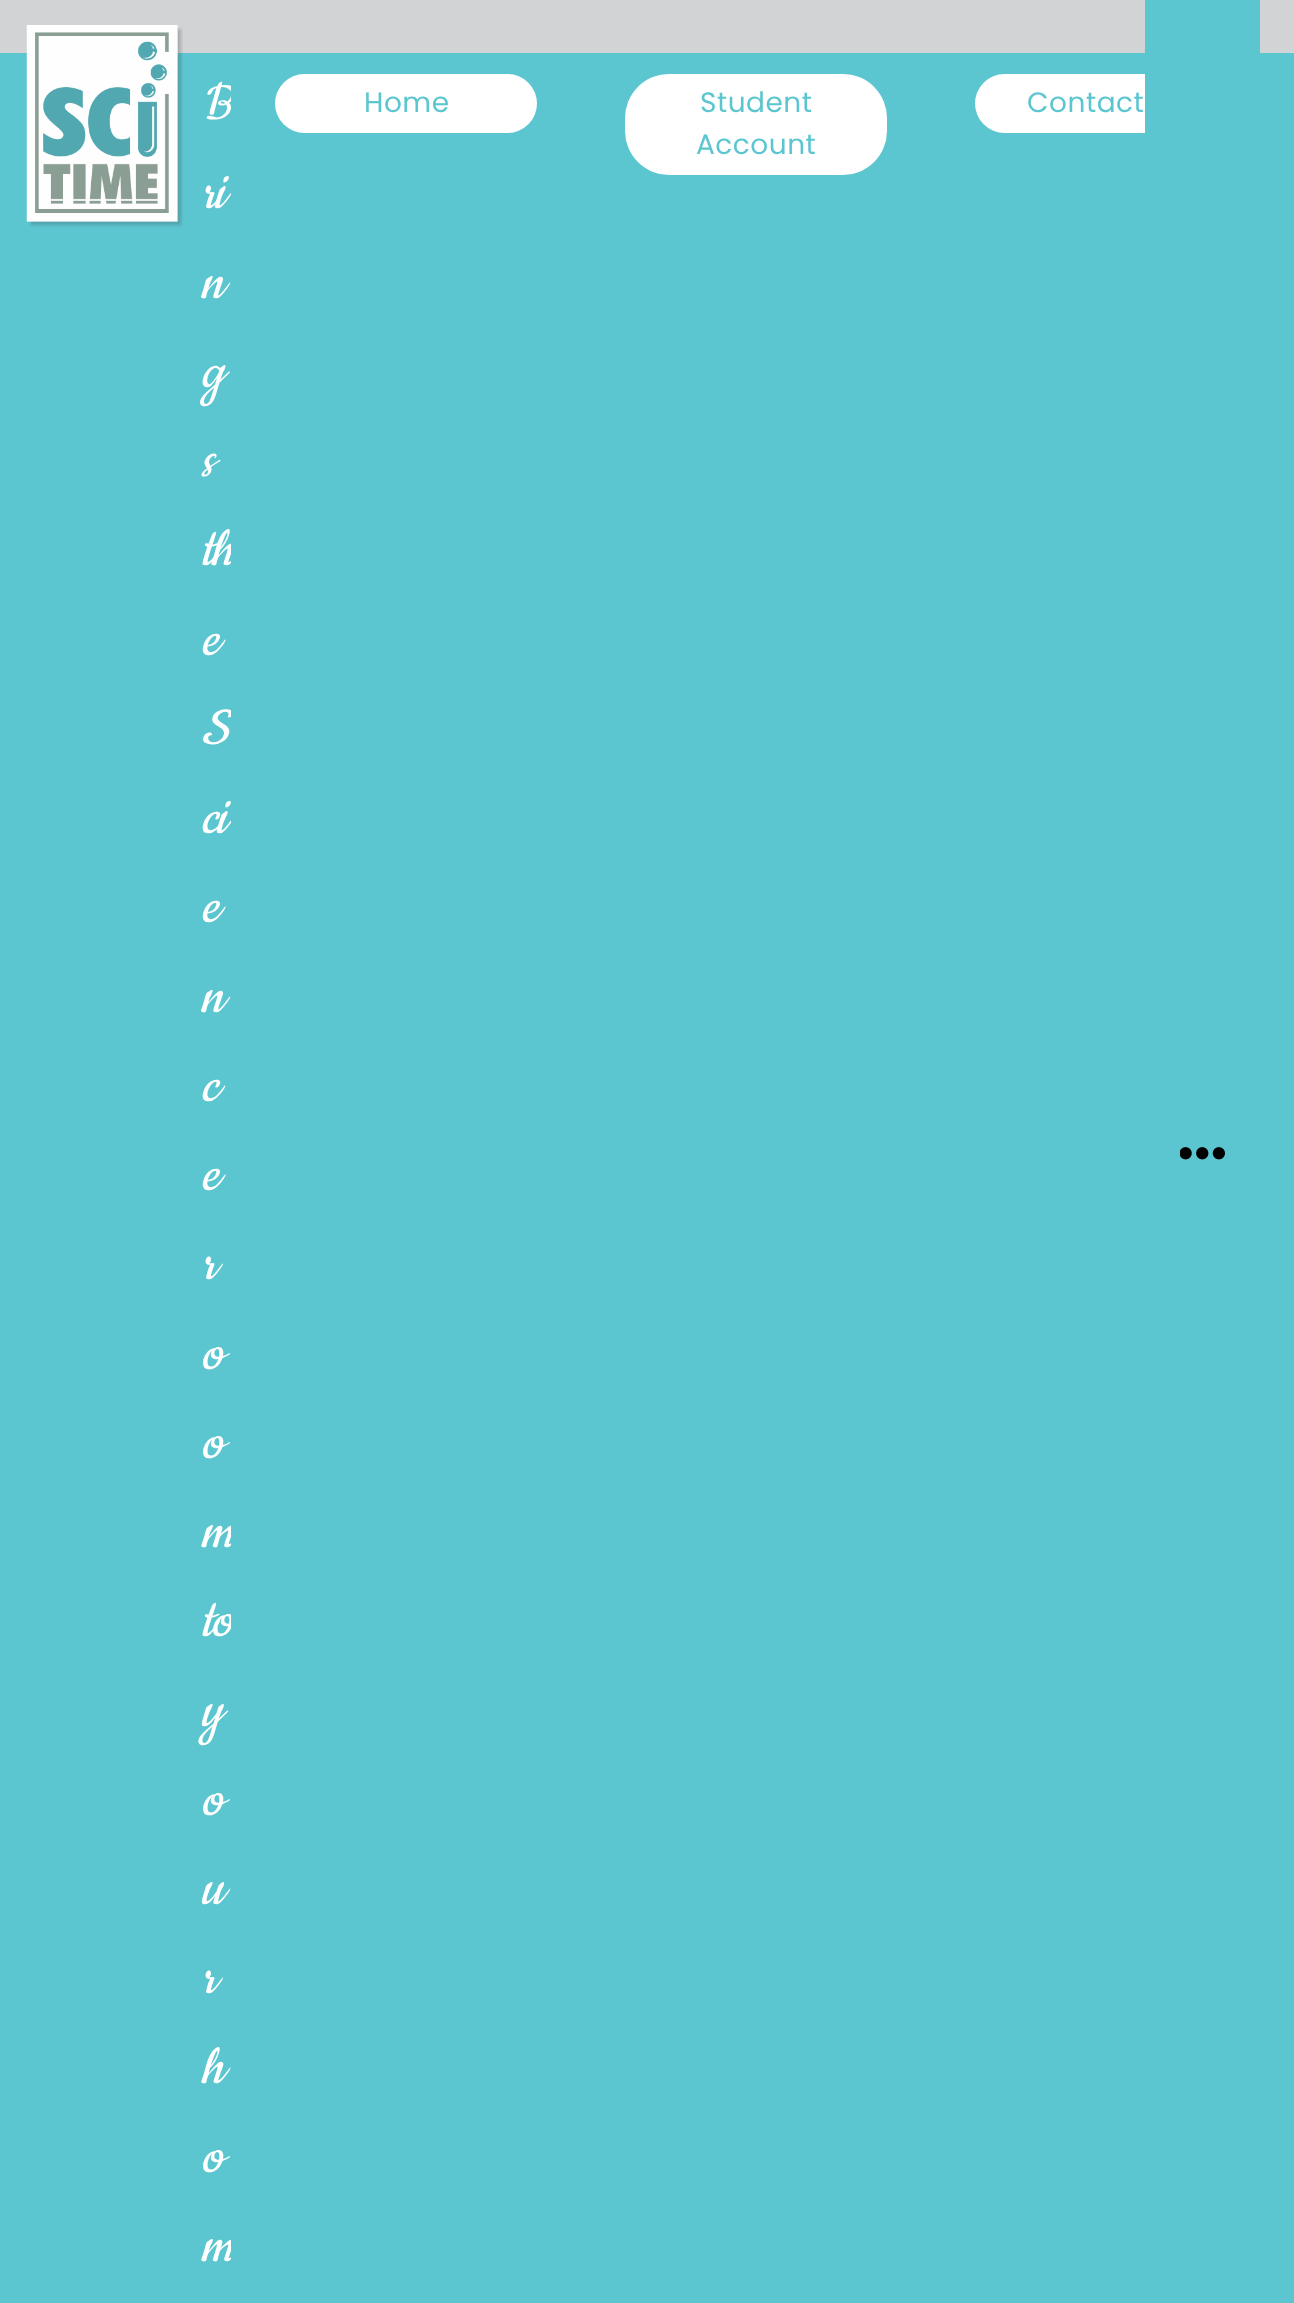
<svg xmlns="http://www.w3.org/2000/svg" width="1294" height="2303">
	<rect width="100%" height="100%" fill="#D2D3D5" />
	<rect x="0" y="53" width="1294" height="2250" fill="#5CC6D0" />
	<image x="26" y="25" width="157" height="202" href="assets/img1.png" />
	<g font-family="Cookie" font-size="60" font-style="italic" letter-spacing="-2" fill="#FFFFFF">
		<text x="201" y="119">B</text>
		<text x="201" y="208">ri</text>
		<text x="201" y="298">n</text>
		<text x="201" y="387">g</text>
		<text x="201" y="476">s</text>
		<text x="201" y="565">th</text>
		<text x="201" y="655">e</text>
		<text x="201" y="744">S</text>
		<text x="201" y="833">ci</text>
		<text x="201" y="922">e</text>
		<text x="201" y="1012">n</text>
		<text x="201" y="1101">c</text>
		<text x="201" y="1190">e</text>
		<text x="201" y="1279">r</text>
		<text x="201" y="1369">o</text>
		<text x="201" y="1458">o</text>
		<text x="201" y="1547">m</text>
		<text x="201" y="1636">to</text>
		<text x="201" y="1726">y</text>
		<text x="201" y="1815">o</text>
		<text x="201" y="1904">u</text>
		<text x="201" y="1993">r</text>
		<text x="201" y="2083">h</text>
		<text x="201" y="2172">o</text>
		<text x="201" y="2261">m</text>
	</g>
	<rect x="231" y="86" width="10" height="2174" fill="#5CC6D0" />
	<rect x="275" y="74" width="262" height="59" rx="29.5" fill="#FFFFFF" />
	<text x="364" y="112" font-family="Poppins" font-size="28" letter-spacing="0.5" fill="#5CC6D0">Home</text>
	<rect x="625" y="74" width="262" height="101" rx="44" fill="#FFFFFF" />
	<g font-family="Poppins" font-size="28" letter-spacing="0.5" fill="#5CC6D0">
		<text x="700" y="112">Student</text>
		<text x="696" y="154">Account</text>
	</g>
	<rect x="975" y="74" width="262" height="59" rx="29.5" fill="#FFFFFF" />
	<text x="1027" y="112" font-family="Poppins" font-size="28" letter-spacing="0.5" fill="#5CC6D0">Contact</text>
	<rect x="1145" y="0" width="115" height="133" fill="#5CC6D0" />
	<image x="1180" y="1147" width="45" height="13" href="assets/img2.png" />
</svg>
